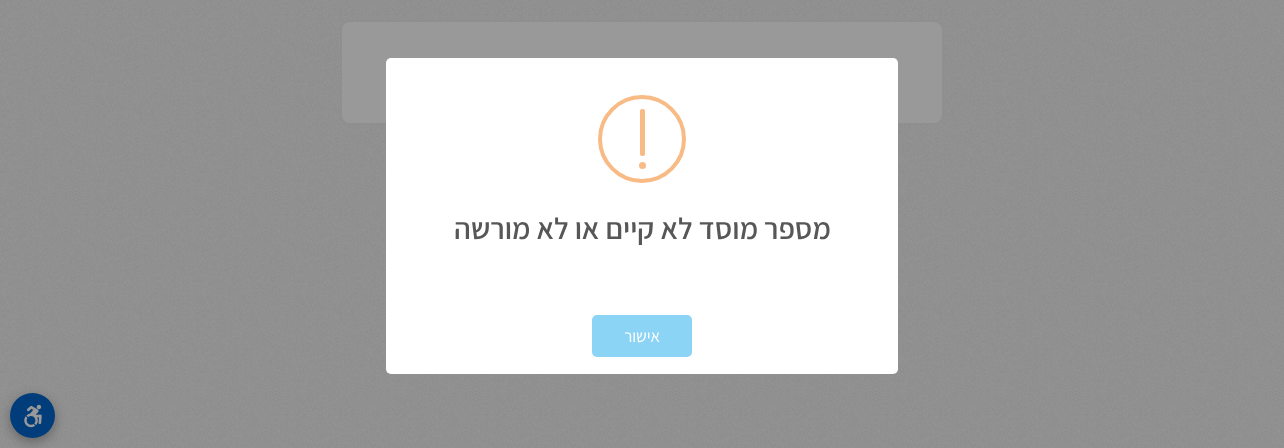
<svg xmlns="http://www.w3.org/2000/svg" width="1284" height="448">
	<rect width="100%" height="100%" fill="#939393" />
	<image x="0" y="0" width="1284" height="448" href="assets/img1.png" />
	<rect x="341" y="21" width="602" height="103" rx="9" fill="#999999" stroke="#8F8F8F" stroke-width="2" />
	<rect x="386" y="58" width="512" height="316" rx="5" fill="#FFFFFF" />
	<circle cx="642" cy="139" r="42" fill="none" stroke="#F8BB86" stroke-width="4" />
	<rect x="640" y="109" width="5" height="47" rx="2" fill="#F8BB86" />
	<circle cx="642.5" cy="165.5" r="3.5" fill="#F8BB86" />
	<text x="831" y="239" font-family="Assistant" font-size="30" font-weight="600" direction="rtl" fill="#575757">מספר מוסד לא קיים או לא מורשה</text>
	<rect x="592" y="315" width="100" height="42" rx="5" fill="#8CD4F5" />
	<text x="660" y="342" font-family="Assistant" font-size="17" direction="rtl" fill="#FFFFFF">אישור</text>
	<rect x="10" y="397" width="45" height="45" rx="22.5" fill="#000000" fill-opacity="0.3" filter="blur(6px)" />
	<circle cx="32.5" cy="415.5" r="22.5" fill="#003D7A" />
	<image x="24" y="404" width="18" height="24" href="assets/img2.png" />
</svg>
